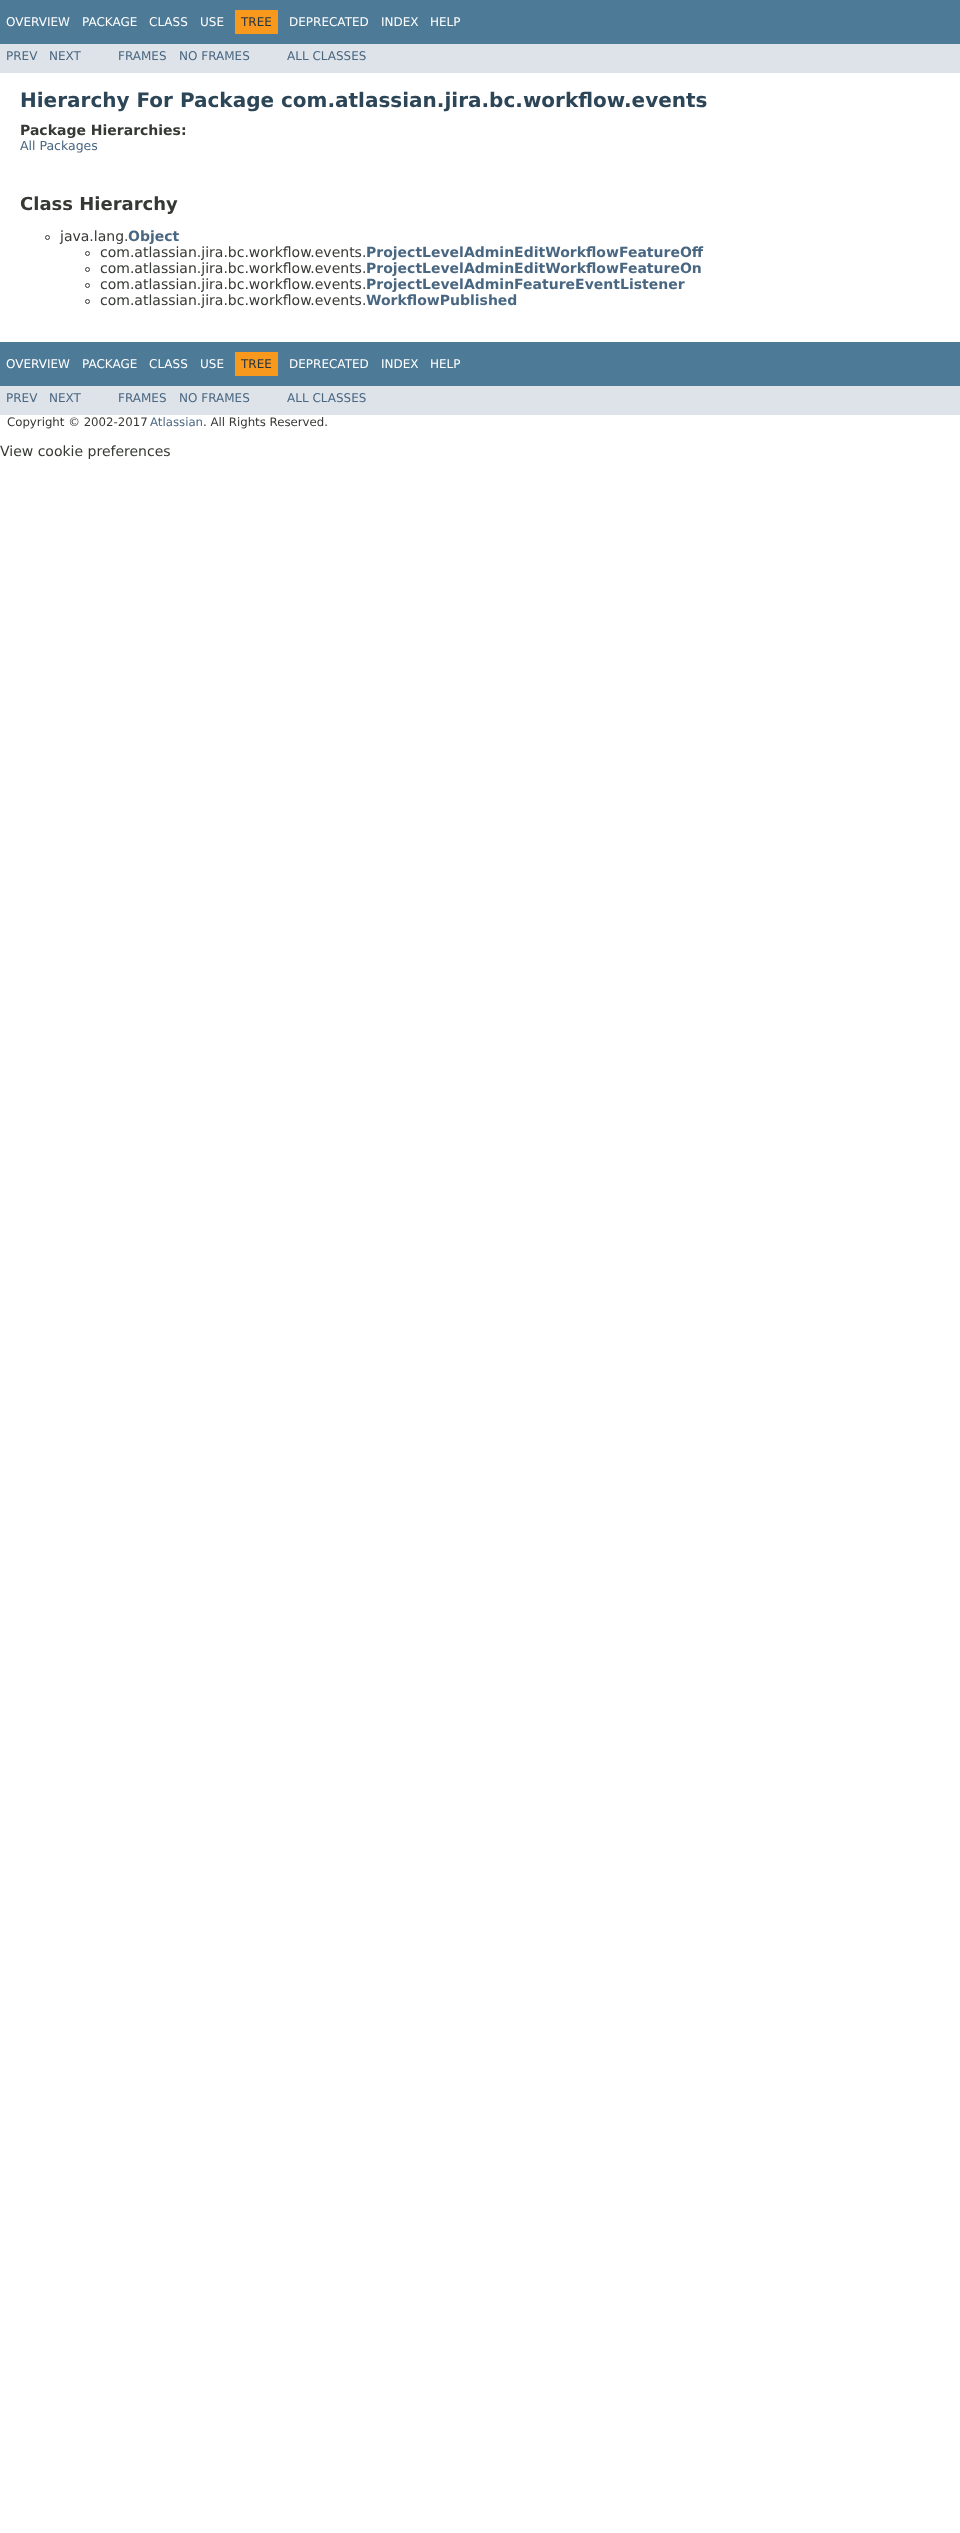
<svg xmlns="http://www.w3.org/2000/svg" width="960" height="2533">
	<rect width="100%" height="100%" fill="#FFFFFF" />
	<rect x="0" y="0" width="960" height="44" fill="#4D7A97" />
	<g font-family="DejaVu Sans" font-size="12" fill="#FFFFFF">
		<text x="6" y="26">OVERVIEW</text>
		<text x="82" y="26">PACKAGE</text>
		<text x="149" y="26">CLASS</text>
		<text x="200" y="26">USE</text>
	</g>
	<rect x="235" y="10" width="43" height="24" fill="#F8981D" />
	<text x="241" y="26" font-family="DejaVu Sans" font-size="12" fill="#253441">TREE</text>
	<g font-family="DejaVu Sans" font-size="12" fill="#FFFFFF">
		<text x="289" y="26">DEPRECATED</text>
		<text x="381" y="26">INDEX</text>
		<text x="430" y="26">HELP</text>
	</g>
	<rect x="0" y="44" width="960" height="29" fill="#DEE3E9" />
	<g font-family="DejaVu Sans" font-size="12" fill="#4A6782">
		<text x="6" y="60">PREV</text>
		<text x="49" y="60">NEXT</text>
		<text x="118" y="60">FRAMES</text>
		<text x="179" y="60">NO FRAMES</text>
		<text x="287" y="60">ALL CLASSES</text>
	</g>
	<text x="20" y="107" font-family="DejaVu Sans" font-size="20" font-weight="700" fill="#2C4557">Hierarchy For Package com.atlassian.jira.bc.workflow.events</text>
	<text x="20" y="135" font-family="DejaVu Sans" font-size="14" font-weight="700" fill="#353833">Package Hierarchies:</text>
	<text x="20" y="150" font-family="DejaVu Sans" font-size="12.5" fill="#4A6782">All Packages</text>
	<text x="20" y="210" font-family="DejaVu Sans" font-size="18" font-weight="700" fill="#353833">Class Hierarchy</text>
	<circle cx="47.5" cy="237.5" r="2" fill="none" stroke="#353833" />
	<text x="60" y="241" font-family="DejaVu Sans" font-size="14" fill="#353833">java.lang.</text>
	<text x="128" y="241" font-family="DejaVu Sans" font-size="14" font-weight="700" fill="#4A6782">Object</text>
	<circle cx="87.5" cy="253.5" r="2" fill="none" stroke="#353833" />
	<text x="100" y="257" font-family="DejaVu Sans" font-size="14" fill="#353833">com.atlassian.jira.bc.workflow.events.</text>
	<text x="366" y="257" font-family="DejaVu Sans" font-size="14" font-weight="700" fill="#4A6782">ProjectLevelAdminEditWorkflowFeatureOff</text>
	<circle cx="87.5" cy="269.5" r="2" fill="none" stroke="#353833" />
	<text x="100" y="273" font-family="DejaVu Sans" font-size="14" fill="#353833">com.atlassian.jira.bc.workflow.events.</text>
	<text x="366" y="273" font-family="DejaVu Sans" font-size="14" font-weight="700" fill="#4A6782">ProjectLevelAdminEditWorkflowFeatureOn</text>
	<circle cx="87.5" cy="285.5" r="2" fill="none" stroke="#353833" />
	<text x="100" y="289" font-family="DejaVu Sans" font-size="14" fill="#353833">com.atlassian.jira.bc.workflow.events.</text>
	<text x="366" y="289" font-family="DejaVu Sans" font-size="14" font-weight="700" fill="#4A6782">ProjectLevelAdminFeatureEventListener</text>
	<circle cx="87.5" cy="301.5" r="2" fill="none" stroke="#353833" />
	<text x="100" y="305" font-family="DejaVu Sans" font-size="14" fill="#353833">com.atlassian.jira.bc.workflow.events.</text>
	<text x="366" y="305" font-family="DejaVu Sans" font-size="14" font-weight="700" fill="#4A6782">WorkflowPublished</text>
	<rect x="0" y="342" width="960" height="44" fill="#4D7A97" />
	<g font-family="DejaVu Sans" font-size="12" fill="#FFFFFF">
		<text x="6" y="368">OVERVIEW</text>
		<text x="82" y="368">PACKAGE</text>
		<text x="149" y="368">CLASS</text>
		<text x="200" y="368">USE</text>
	</g>
	<rect x="235" y="352" width="43" height="24" fill="#F8981D" />
	<text x="241" y="368" font-family="DejaVu Sans" font-size="12" fill="#253441">TREE</text>
	<g font-family="DejaVu Sans" font-size="12" fill="#FFFFFF">
		<text x="289" y="368">DEPRECATED</text>
		<text x="381" y="368">INDEX</text>
		<text x="430" y="368">HELP</text>
	</g>
	<rect x="0" y="386" width="960" height="29" fill="#DEE3E9" />
	<g font-family="DejaVu Sans" font-size="12" fill="#4A6782">
		<text x="6" y="402">PREV</text>
		<text x="49" y="402">NEXT</text>
		<text x="118" y="402">FRAMES</text>
		<text x="179" y="402">NO FRAMES</text>
		<text x="287" y="402">ALL CLASSES</text>
	</g>
	<text x="7" y="426" font-family="DejaVu Sans" font-size="11.75" fill="#353833">Copyright © 2002-2017</text>
	<text x="150" y="426" font-family="DejaVu Sans" font-size="11.75" fill="#4A6782">Atlassian</text>
	<text x="203" y="426" font-family="DejaVu Sans" font-size="11.75" fill="#353833">. All Rights Reserved.</text>
	<text x="0" y="456" font-family="DejaVu Sans" font-size="14" fill="#353833">View cookie preferences</text>
</svg>
